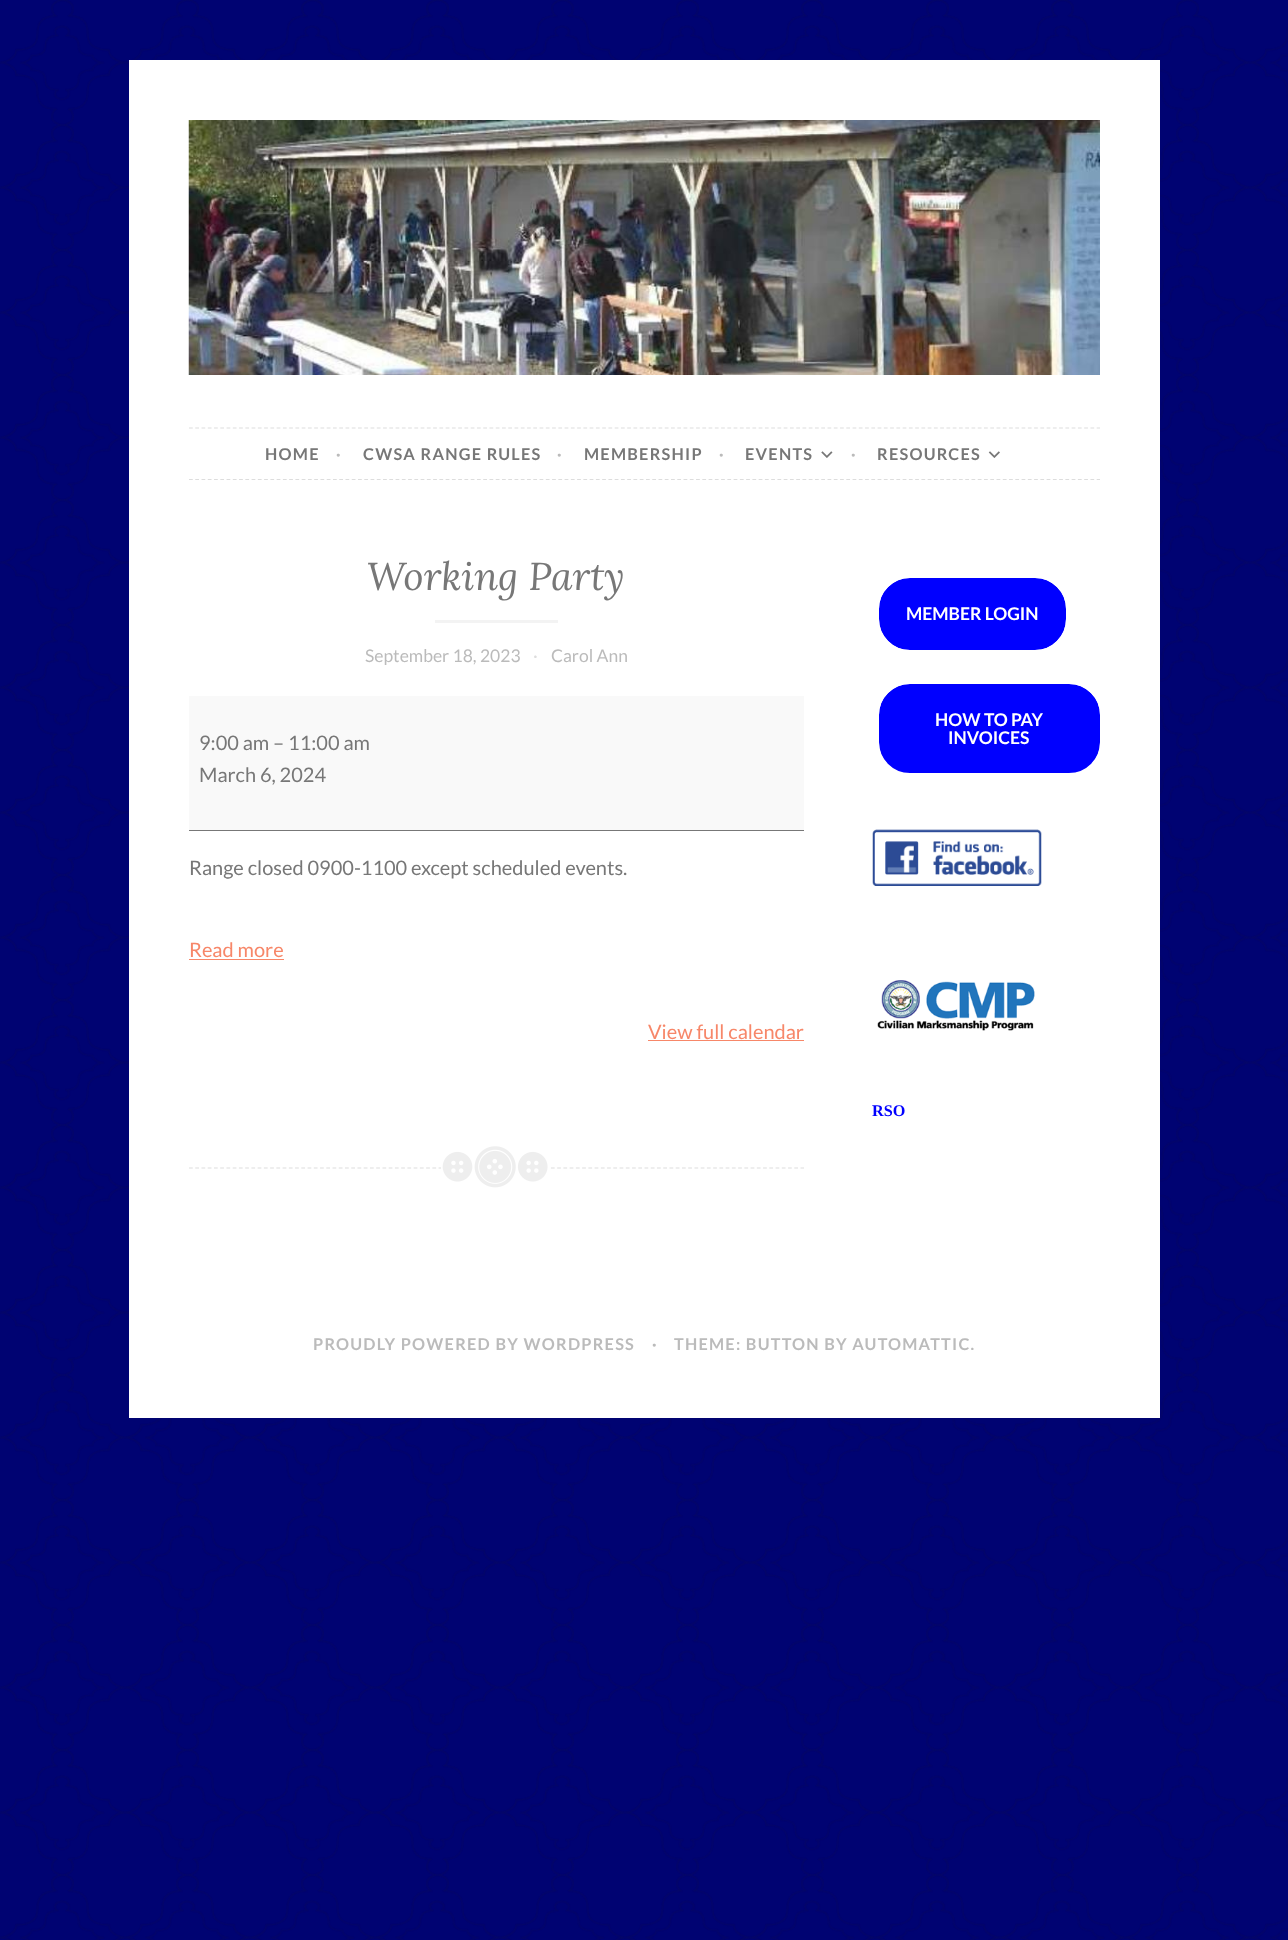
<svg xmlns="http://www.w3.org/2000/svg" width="1288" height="1940">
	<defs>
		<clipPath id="clip1"><rect x="873" y="554" width="227" height="624" /></clipPath>
	</defs>
	<rect width="100%" height="100%" fill="#000372" />
	<image x="0" y="0" width="1288" height="1940" href="assets/img1.png" />
	<rect x="129" y="60" width="1031" height="1358" fill="#FFFFFF" />
	<image x="188" y="120" width="912" height="255" href="assets/img2.png" />
	<path d="M189 428H1100" fill="none" stroke="#DDDDDD" stroke-width="1.2" stroke-dasharray="3.75 2.51" />
	<path d="M189 479.5H1100" fill="none" stroke="#DDDDDD" stroke-width="1.2" stroke-dasharray="3.75 2.51" />
	<text x="265" y="460" font-family="Lato" font-size="16.25" font-weight="700" letter-spacing="1.25" fill="#777777">HOME</text>
	<text x="336" y="460" font-family="Lato" font-size="16.25" font-weight="700" letter-spacing="1.25" fill="#BBBBBB">·</text>
	<text x="363" y="460" font-family="Lato" font-size="16.25" font-weight="700" letter-spacing="1.25" fill="#777777">CWSA RANGE RULES</text>
	<text x="557" y="460" font-family="Lato" font-size="16.25" font-weight="700" letter-spacing="1.25" fill="#BBBBBB">·</text>
	<text x="584" y="460" font-family="Lato" font-size="16.25" font-weight="700" letter-spacing="1.25" fill="#777777">MEMBERSHIP</text>
	<text x="719" y="460" font-family="Lato" font-size="16.25" font-weight="700" letter-spacing="1.25" fill="#BBBBBB">·</text>
	<text x="745" y="460" font-family="Lato" font-size="16.25" font-weight="700" letter-spacing="1.25" fill="#777777">EVENTS</text>
	<image x="821" y="451" width="12" height="7" href="assets/img3.png" />
	<text x="851" y="460" font-family="Lato" font-size="16.25" font-weight="700" letter-spacing="1.25" fill="#BBBBBB">·</text>
	<text x="877" y="460" font-family="Lato" font-size="16.25" font-weight="700" letter-spacing="1.25" fill="#777777">RESOURCES</text>
	<image x="988" y="451" width="12" height="7" href="assets/img4.png" />
	<path d="M189 1168H804" fill="none" stroke="#DDDDDD" stroke-width="1.2" stroke-dasharray="3.75 2.49" />
	<text x="367" y="590" font-family="Lora" font-size="39" font-style="italic" fill="#777777">Working Party</text>
	<rect x="435" y="620" width="123" height="3" fill="#F3F3F3" />
	<text x="365" y="662" font-family="Lato" font-size="17.5" fill="#BBBBBB">September 18, 2023</text>
	<text x="533" y="662" font-family="Lato" font-size="17.5" fill="#DDDDDD">·</text>
	<text x="551" y="662" font-family="Lato" font-size="17.5" fill="#BBBBBB">Carol Ann</text>
	<rect x="189" y="696" width="615" height="134" fill="#F9F9F9" />
	<rect x="189" y="830" width="615" height="1" fill="#777777" />
	<g font-family="Lato" font-size="20" fill="#777777">
		<text x="199" y="750">9:00 am – 11:00 am</text>
		<text x="199" y="782">March 6, 2024</text>
		<text x="189" y="875">Range closed 0900-1100 except scheduled events.</text>
	</g>
	<text x="189" y="957" font-family="Lato" font-size="20" fill="#F78769">Read more</text>
	<rect x="189" y="959" width="95" height="1" fill="#F78769" />
	<text x="648" y="1039" font-family="Lato" font-size="20" fill="#F78769">View full calendar</text>
	<rect x="648" y="1040" width="156" height="1" fill="#F78769" />
	<rect x="441" y="1167" width="108" height="2" fill="#FFFFFF" />
	<image x="442" y="1146" width="106" height="42" href="assets/img5.png" />
	<rect x="880.5" y="579.5" width="184" height="69" rx="29.5" fill="#0000FF" stroke="#0000FF" stroke-width="3" />
	<rect x="877.5" y="576.5" width="190" height="75" rx="32.5" fill="none" stroke="#FFFFFF" stroke-width="3" />
	<text x="906" y="620" font-family="Lato" font-size="17.5" font-weight="700" fill="#FFFFFF">MEMBER LOGIN</text>
	<rect x="880.5" y="685.5" width="218" height="87" rx="29.5" fill="#0000FF" stroke="#0000FF" stroke-width="3" />
	<g clip-path="url(#clip1)">
		<rect x="877.5" y="682.5" width="224" height="92" rx="32.5" fill="none" stroke="#FFFFFF" stroke-width="3" />
	</g>
	<g font-family="Lato" font-size="17.5" font-weight="700" fill="#FFFFFF">
		<text x="935" y="726">HOW TO PAY</text>
		<text x="948" y="744">INVOICES</text>
	</g>
	<image x="872" y="829" width="170" height="57" href="assets/img6.png" />
	<image x="877" y="980" width="158" height="51" href="assets/img7.png" />
	<text x="872" y="1116" font-family="Liberation Serif" font-size="16.25" font-weight="700" fill="#0000FF">RSO</text>
	<g font-family="Lato" font-size="16.25" font-weight="700" letter-spacing="1.25" fill="#BBBBBB">
		<text x="313" y="1350">PROUDLY POWERED BY WORDPRESS</text>
		<text x="652" y="1350">·</text>
		<text x="674" y="1350">THEME: BUTTON BY AUTOMATTIC.</text>
	</g>
</svg>
